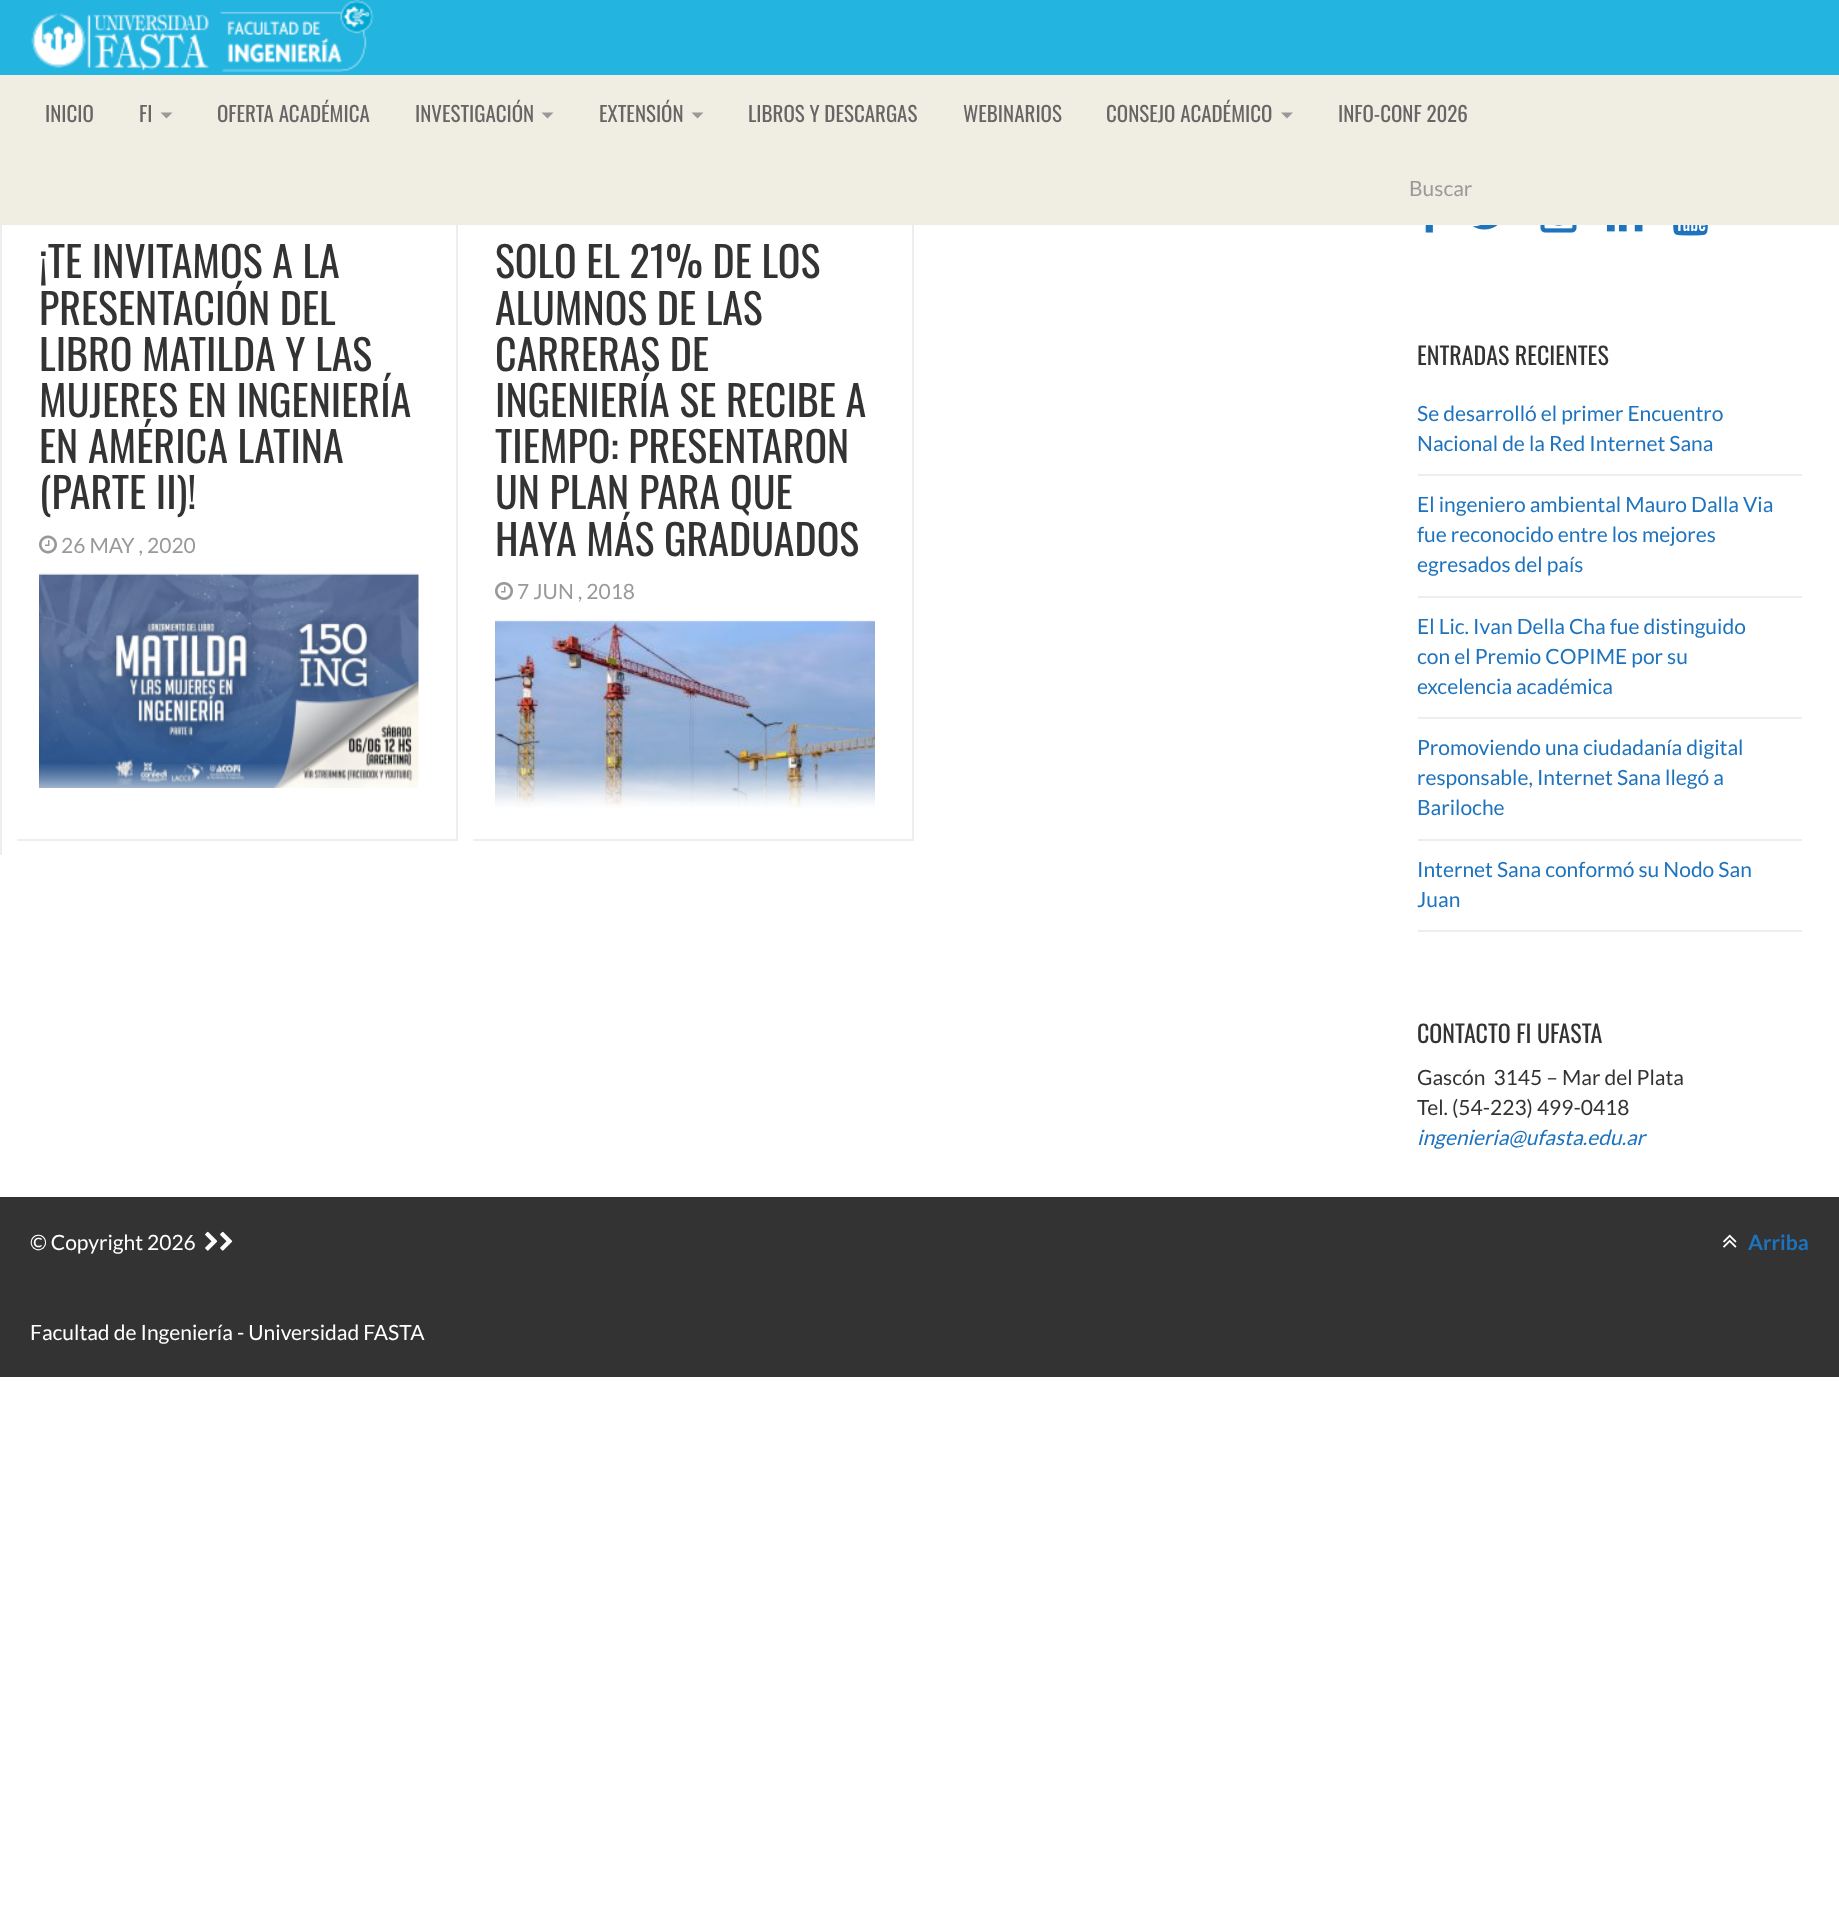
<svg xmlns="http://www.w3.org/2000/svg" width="1839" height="1930">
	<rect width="100%" height="100%" fill="#FFFFFF" />
	<rect x="0" y="0" width="1839" height="75" fill="#23B4E0" />
	<image x="31" y="0" width="343" height="72" href="assets/img1.png" />
	<rect x="0" y="75" width="1839" height="150" fill="#F0EDE3" />
	<g font-family="Oswald" font-size="21" fill="#666666">
		<text x="45" y="122">INICIO</text>
		<text x="139" y="122">FI</text>
	</g>
	<path d="M160.5 112.5H172.5L166.5 118.5Z" fill="#999999" />
	<g font-family="Oswald" font-size="21" fill="#666666">
		<text x="217" y="122">OFERTA ACADÉMICA</text>
		<text x="415" y="122">INVESTIGACIÓN</text>
	</g>
	<path d="M541.5 112.5H553.5L547.5 118.5Z" fill="#999999" />
	<text x="599" y="122" font-family="Oswald" font-size="21" fill="#666666">EXTENSIÓN</text>
	<path d="M691.5 112.5H703.5L697.5 118.5Z" fill="#999999" />
	<g font-family="Oswald" font-size="21" fill="#666666">
		<text x="748" y="122">LIBROS Y DESCARGAS</text>
		<text x="963" y="122">WEBINARIOS</text>
		<text x="1106" y="122">CONSEJO ACADÉMICO</text>
	</g>
	<path d="M1281 112.5H1293L1287 118.5Z" fill="#999999" />
	<text x="1338" y="122" font-family="Oswald" font-size="21" fill="#666666">INFO-CONF 2026</text>
	<text x="1409" y="196" font-family="Lato" font-size="21" fill="#999999">Buscar</text>
	<rect x="0" y="225" width="2" height="630" fill="#EEEEEE" />
	<rect x="456" y="225" width="2" height="615" fill="#EEEEEE" />
	<rect x="17" y="839" width="441" height="2" fill="#EEEEEE" />
	<g font-family="Oswald" font-size="42" fill="#333333">
		<text x="39" y="278">¡TE INVITAMOS A LA</text>
		<text x="39" y="325">PRESENTACIÓN DEL</text>
		<text x="39" y="371">LIBRO MATILDA Y LAS</text>
		<text x="39" y="417">MUJERES EN INGENIERÍA</text>
		<text x="39" y="463">EN AMÉRICA LATINA</text>
		<text x="39" y="509">(PARTE II)!</text>
	</g>
	<image x="39" y="535" width="18" height="19" href="assets/img2.png" />
	<text x="61" y="553" font-family="Lato" font-size="21" fill="#999999">26 MAY , 2020</text>
	<image x="39" y="573" width="380" height="215" href="assets/img3.png" />
	<image x="39" y="764" width="380" height="75" href="assets/img4.png" />
	<rect x="912" y="225" width="2" height="615" fill="#EEEEEE" />
	<rect x="473" y="839" width="441" height="2" fill="#EEEEEE" />
	<g font-family="Oswald" font-size="42" fill="#333333">
		<text x="495" y="278">SOLO EL 21% DE LOS</text>
		<text x="495" y="325">ALUMNOS DE LAS</text>
		<text x="495" y="371">CARRERAS DE</text>
		<text x="495" y="417">INGENIERÍA SE RECIBE A</text>
		<text x="495" y="463">TIEMPO: PRESENTARON</text>
		<text x="495" y="509">UN PLAN PARA QUE</text>
		<text x="495" y="556">HAYA MÁS GRADUADOS</text>
	</g>
	<image x="495" y="582" width="18" height="18" href="assets/img5.png" />
	<text x="517" y="599" font-family="Lato" font-size="21" fill="#999999">7 JUN , 2018</text>
	<image x="495" y="620" width="380" height="189" href="assets/img6.png" />
	<image x="495" y="764" width="380" height="70" href="assets/img7.png" />
	<image x="1425" y="225" width="8" height="8" href="assets/img8.png" />
	<image x="1472" y="225" width="26" height="5" href="assets/img9.png" />
	<image x="1540" y="225" width="37" height="8" href="assets/img10.png" />
	<image x="1606" y="225" width="37" height="7" href="assets/img11.png" />
	<image x="1673" y="225" width="35" height="11" href="assets/img12.png" />
	<text x="1417" y="365" font-family="Oswald" font-size="24" fill="#333333">ENTRADAS RECIENTES</text>
	<rect x="1418" y="474" width="384" height="2" fill="#EEEEEE" />
	<g font-family="Lato" font-size="21" fill="#1E73BE">
		<text x="1417" y="421">Se desarrolló el primer Encuentro</text>
		<text x="1417" y="451">Nacional de la Red Internet Sana</text>
	</g>
	<rect x="1418" y="596" width="384" height="2" fill="#EEEEEE" />
	<g font-family="Lato" font-size="21" fill="#1E73BE">
		<text x="1417" y="512">El ingeniero ambiental Mauro Dalla Via</text>
		<text x="1417" y="542">fue reconocido entre los mejores</text>
		<text x="1417" y="572">egresados del país</text>
	</g>
	<rect x="1418" y="717" width="384" height="2" fill="#EEEEEE" />
	<g font-family="Lato" font-size="21" fill="#1E73BE">
		<text x="1417" y="634">El Lic. Ivan Della Cha fue distinguido</text>
		<text x="1417" y="664">con el Premio COPIME por su</text>
		<text x="1417" y="694">excelencia académica</text>
	</g>
	<rect x="1418" y="839" width="384" height="2" fill="#EEEEEE" />
	<g font-family="Lato" font-size="21" fill="#1E73BE">
		<text x="1417" y="755">Promoviendo una ciudadanía digital</text>
		<text x="1417" y="785">responsable, Internet Sana llegó a</text>
		<text x="1417" y="815">Bariloche</text>
	</g>
	<rect x="1418" y="930" width="384" height="2" fill="#EEEEEE" />
	<g font-family="Lato" font-size="21" fill="#1E73BE">
		<text x="1417" y="877">Internet Sana conformó su Nodo San</text>
		<text x="1417" y="907">Juan</text>
	</g>
	<text x="1417" y="1043" font-family="Oswald" font-size="24" fill="#333333">CONTACTO FI UFASTA</text>
	<g font-family="Lato" font-size="21" fill="#333333">
		<text x="1417" y="1085" xml:space="preserve">Gascón  3145 – Mar del Plata</text>
		<text x="1417" y="1115">Tel. (54-223) 499-0418</text>
	</g>
	<text x="1417" y="1145" font-family="Lato" font-size="21" font-style="italic" fill="#1E73BE">ingenieria@ufasta.edu.ar</text>
	<rect x="0" y="1197" width="1839" height="180" fill="#333333" />
	<text x="30" y="1250" font-family="Lato" font-size="21" fill="#FFFFFF">© Copyright 2026</text>
	<image x="205" y="1231" width="13" height="20" href="assets/img13.png" />
	<image x="220" y="1231" width="13" height="20" href="assets/img13.png" />
	<image x="1723" y="1234" width="14" height="14" href="assets/img14.png" />
	<text x="1748" y="1250" font-family="Lato" font-size="21" font-weight="700" fill="#1E73BE">Arriba</text>
	<text x="30" y="1340" font-family="Lato" font-size="21" fill="#FFFFFF">Facultad de Ingeniería - Universidad FASTA</text>
</svg>
